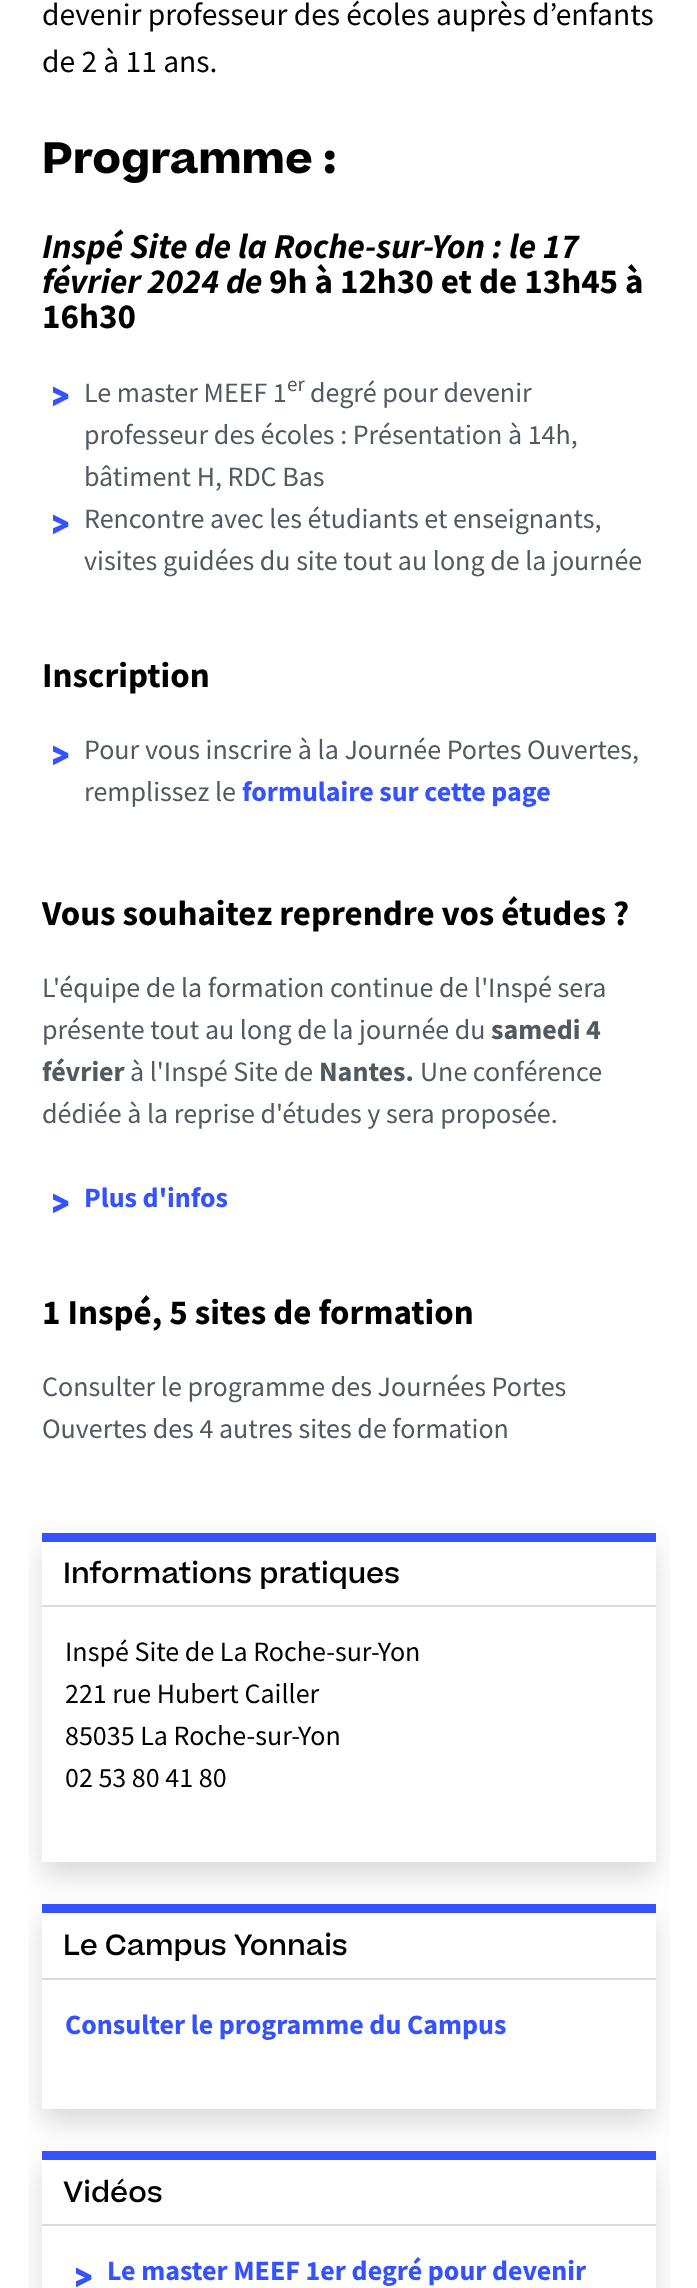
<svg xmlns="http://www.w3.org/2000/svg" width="697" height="2288">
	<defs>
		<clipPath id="clip1"><rect x="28" y="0" width="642" height="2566" /></clipPath>
		<clipPath id="clip2"><path d="M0 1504H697V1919H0ZM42 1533H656V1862H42Z" clip-rule="evenodd" /></clipPath>
		<clipPath id="clip3"><path d="M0 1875H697V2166H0ZM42 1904H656V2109H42Z" clip-rule="evenodd" /></clipPath>
		<clipPath id="clip4"><path d="M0 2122H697V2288H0ZM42 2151H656V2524H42Z" clip-rule="evenodd" /></clipPath>
	</defs>
	<rect width="100%" height="100%" fill="#FFFFFF" />
	<g font-family="Source Sans Pro" font-size="31.5" fill="#000000">
		<text x="42" y="25">devenir professeur des écoles auprès d’enfants</text>
		<text x="42" y="72">de 2 à 11 ans.</text>
	</g>
	<text x="42" y="173" font-family="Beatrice" font-size="42" font-weight="700" fill="#000000">Programme :</text>
	<g font-family="Source Sans Pro" font-size="35" font-weight="700" font-style="italic" fill="#000000">
		<text x="42" y="258">Inspé Site de la Roche-sur-Yon : le 17</text>
		<text x="42" y="293">février 2024 de</text>
	</g>
	<g font-family="Source Sans Pro" font-size="35" font-weight="700" fill="#000000">
		<text x="269" y="293">9h à 12h30 et de 13h45 à</text>
		<text x="42" y="328">16h30</text>
	</g>
	<text x="51" y="408" font-family="Beatrice" font-size="38" font-weight="700" fill="#3452FF">&gt;</text>
	<text x="84" y="402" font-family="Source Sans Pro" font-size="28" fill="#515961">Le master MEEF 1</text>
	<text x="287" y="391" font-family="Source Sans Pro" font-size="21" fill="#515961">er</text>
	<g font-family="Source Sans Pro" font-size="28" fill="#515961">
		<text x="310" y="402">degré pour devenir</text>
		<text x="84" y="444">professeur des écoles : Présentation à 14h,</text>
		<text x="84" y="486">bâtiment H, RDC Bas</text>
	</g>
	<text x="51" y="536" font-family="Beatrice" font-size="38" font-weight="700" fill="#3452FF">&gt;</text>
	<g font-family="Source Sans Pro" font-size="28" fill="#515961">
		<text x="84" y="528">Rencontre avec les étudiants et enseignants,</text>
		<text x="84" y="570">visites guidées du site tout au long de la journée</text>
	</g>
	<text x="42" y="687" font-family="Source Sans Pro" font-size="35" font-weight="700" fill="#000000">Inscription</text>
	<text x="51" y="767" font-family="Beatrice" font-size="38" font-weight="700" fill="#3452FF">&gt;</text>
	<g font-family="Source Sans Pro" font-size="28" fill="#515961">
		<text x="84" y="759">Pour vous inscrire à la Journée Portes Ouvertes,</text>
		<text x="84" y="801">remplissez le</text>
	</g>
	<text x="242" y="801" font-family="Source Sans Pro" font-size="28" font-weight="700" fill="#3452FF">formulaire sur cette page</text>
	<text x="42" y="925" font-family="Source Sans Pro" font-size="35" font-weight="700" fill="#000000">Vous souhaitez reprendre vos études ?</text>
	<g font-family="Source Sans Pro" font-size="28" fill="#515961">
		<text x="42" y="997">L'équipe de la formation continue de l'Inspé sera</text>
		<text x="42" y="1039">présente tout au long de la journée du</text>
	</g>
	<g font-family="Source Sans Pro" font-size="28" font-weight="700" fill="#515961">
		<text x="491" y="1039">samedi 4</text>
		<text x="42" y="1081">février</text>
	</g>
	<text x="130" y="1081" font-family="Source Sans Pro" font-size="28" fill="#515961">à l'Inspé Site de</text>
	<text x="319" y="1081" font-family="Source Sans Pro" font-size="28" font-weight="700" fill="#515961">Nantes.</text>
	<g font-family="Source Sans Pro" font-size="28" fill="#515961">
		<text x="420" y="1081">Une conférence</text>
		<text x="42" y="1123">dédiée à la reprise d'études y sera proposée.</text>
	</g>
	<text x="51" y="1215" font-family="Beatrice" font-size="38" font-weight="700" fill="#3452FF">&gt;</text>
	<text x="84" y="1207" font-family="Source Sans Pro" font-size="28" font-weight="700" fill="#3452FF">Plus d'infos</text>
	<text x="42" y="1324" font-family="Source Sans Pro" font-size="35" font-weight="700" fill="#000000">1 Inspé, 5 sites de formation</text>
	<g font-family="Source Sans Pro" font-size="28" fill="#515961">
		<text x="42" y="1396">Consulter le programme des Journées Portes</text>
		<text x="42" y="1438">Ouvertes des 4 autres sites de formation</text>
	</g>
	<g clip-path="url(#clip1)">
		<g clip-path="url(#clip2)">
			<rect x="42" y="1547" width="614" height="329" fill="#000000" fill-opacity="0.15" filter="blur(14px)" />
		</g>
	</g>
	<rect x="42" y="1533" width="614" height="9" fill="#3452FF" />
	<rect x="42" y="1605" width="614" height="2" fill="#DBDBDB" />
	<text x="63" y="1583" font-family="Beatrice" font-size="28" font-weight="500" fill="#000000">Informations pratiques</text>
	<g font-family="Source Sans Pro" font-size="28" fill="#000000">
		<text x="65" y="1661">Inspé Site de La Roche-sur-Yon</text>
		<text x="65" y="1703">221 rue Hubert Cailler</text>
		<text x="65" y="1745">85035 La Roche-sur-Yon</text>
		<text x="65" y="1787">02 53 80 41 80</text>
	</g>
	<g clip-path="url(#clip1)">
		<g clip-path="url(#clip3)">
			<rect x="42" y="1918" width="614" height="205" fill="#000000" fill-opacity="0.15" filter="blur(14px)" />
		</g>
	</g>
	<rect x="42" y="1904" width="614" height="9" fill="#3452FF" />
	<rect x="42" y="1978" width="614" height="2" fill="#DBDBDB" />
	<text x="63" y="1955" font-family="Beatrice" font-size="28" font-weight="500" fill="#000000">Le Campus Yonnais</text>
	<text x="65" y="2034" font-family="Source Sans Pro" font-size="28" font-weight="700" fill="#3452FF">Consulter le programme du Campus</text>
	<g clip-path="url(#clip1)">
		<g clip-path="url(#clip4)">
			<rect x="42" y="2165" width="614" height="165" fill="#000000" fill-opacity="0.15" filter="blur(14px)" />
		</g>
	</g>
	<rect x="42" y="2151" width="614" height="9" fill="#3452FF" />
	<rect x="42" y="2224" width="614" height="2" fill="#DBDBDB" />
	<text x="63" y="2202" font-family="Beatrice" font-size="28" font-weight="500" fill="#000000">Vidéos</text>
	<text x="74" y="2289" font-family="Beatrice" font-size="38" font-weight="700" fill="#3452FF">&gt;</text>
	<text x="107" y="2280" font-family="Source Sans Pro" font-size="28" font-weight="700" fill="#3452FF">Le master MEEF 1er degré pour devenir</text>
</svg>
